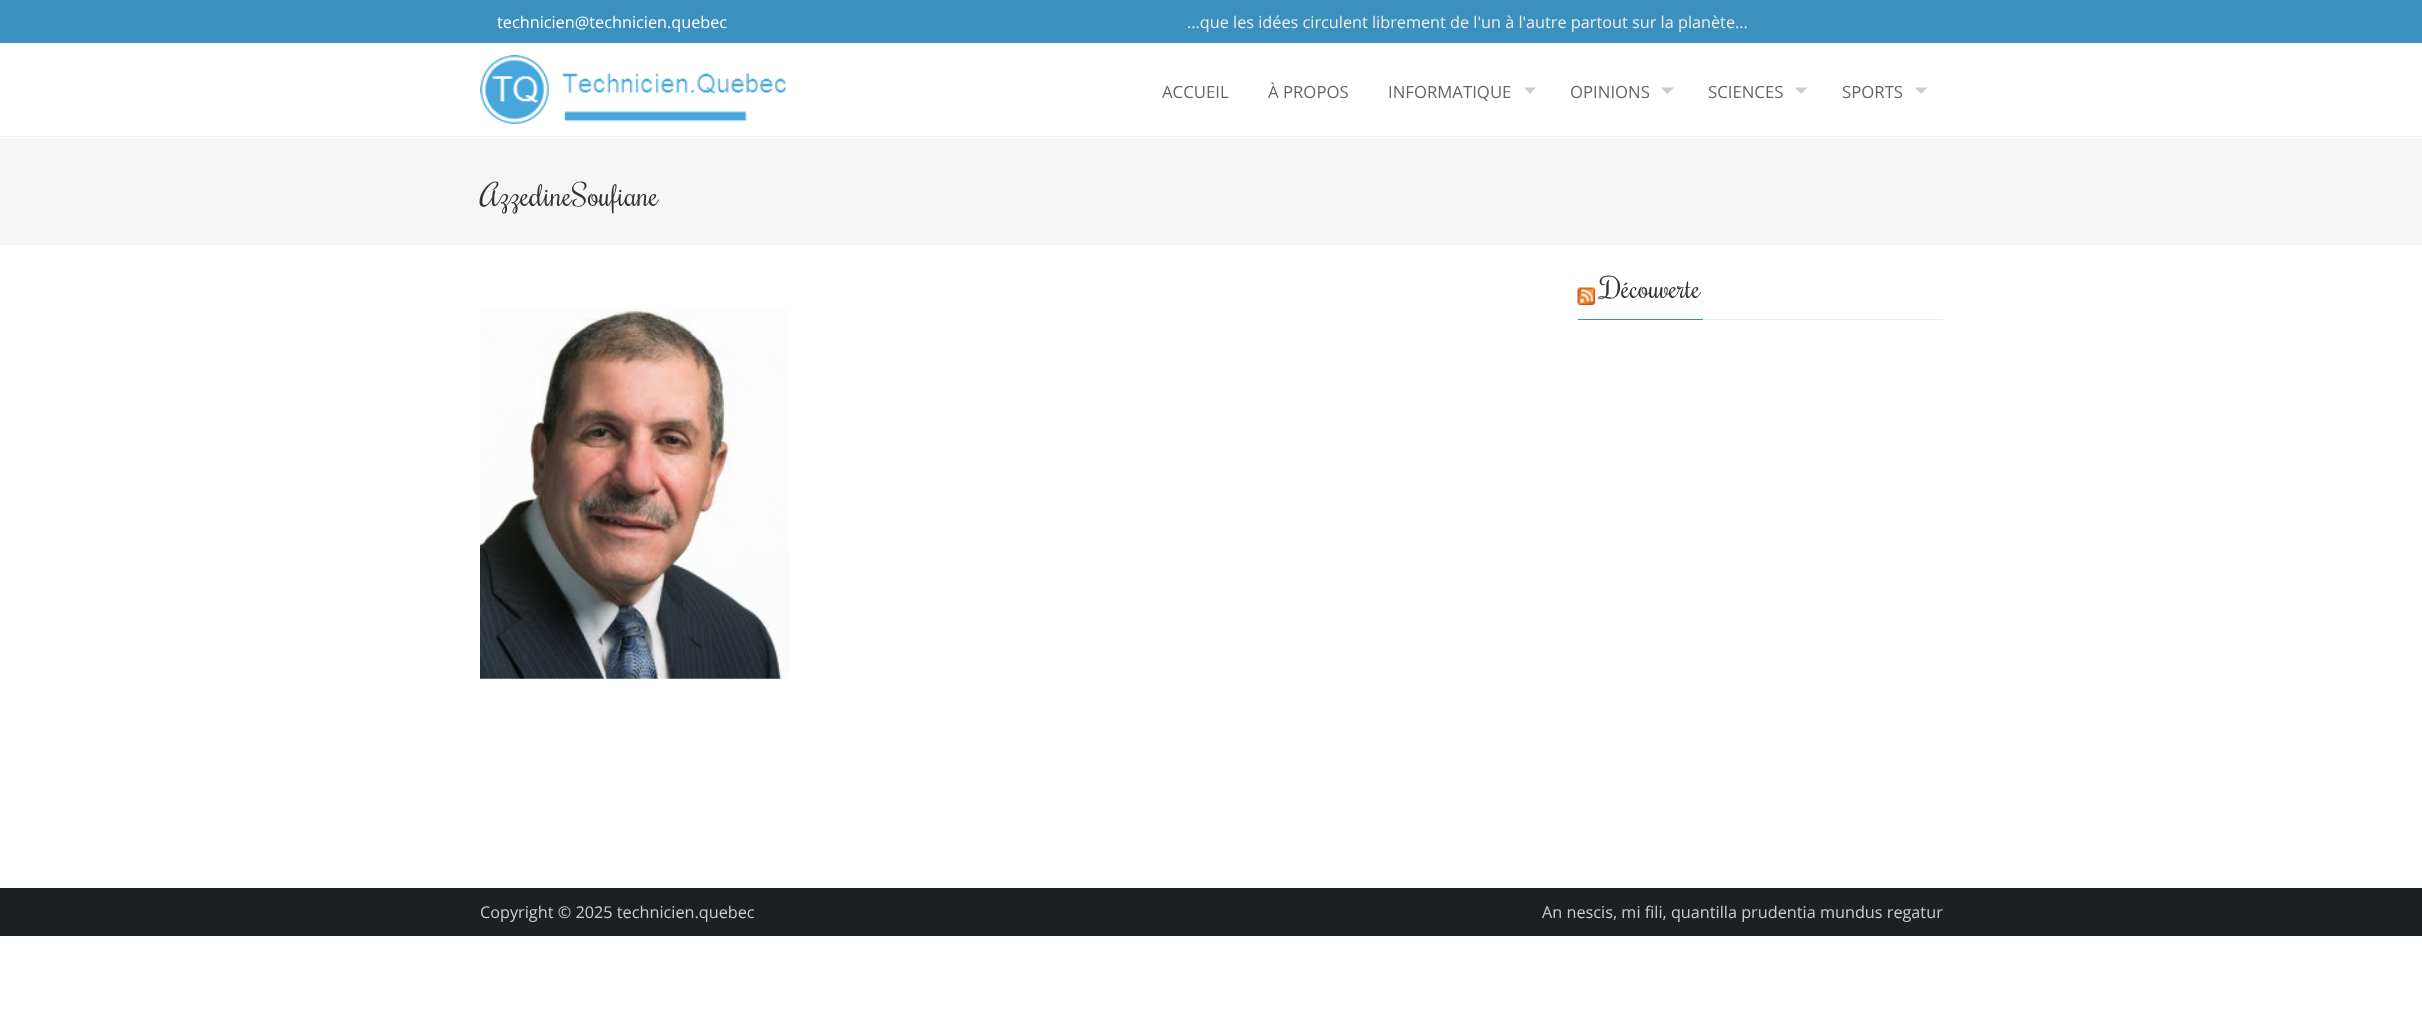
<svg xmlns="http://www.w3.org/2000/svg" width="2422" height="1026">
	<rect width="100%" height="100%" fill="#FFFFFF" />
	<rect x="0" y="0" width="2422" height="43" fill="#3C90BE" />
	<text x="497" y="28" font-family="Open Sans" font-size="16.25" fill="#FFFFFF">technicien@technicien.quebec</text>
	<text x="1187" y="28" font-family="Open Sans" font-size="16.25" fill="#EEEEEE">...que les idées circulent librement de l'un à l'autre partout sur la planète...</text>
	<rect x="0" y="136" width="2422" height="1" fill="#EEEEEE" />
	<image x="480" y="55" width="307" height="69" href="assets/img1.png" />
	<g font-family="Open Sans" font-size="16.75" fill="#666666">
		<text x="1162" y="98">ACCUEIL</text>
		<text x="1268" y="98">À PROPOS</text>
		<text x="1388" y="98">INFORMATIQUE</text>
	</g>
	<path d="M1524 87.5H1536L1530 94Z" fill="#CCCCCC" />
	<text x="1570" y="98" font-family="Open Sans" font-size="16.75" fill="#666666">OPINIONS</text>
	<path d="M1661 87.5H1674L1667.5 94Z" fill="#CCCCCC" />
	<text x="1708" y="98" font-family="Open Sans" font-size="16.75" fill="#666666">SCIENCES</text>
	<path d="M1795 87.5H1807.5L1801 94Z" fill="#CCCCCC" />
	<text x="1842" y="98" font-family="Open Sans" font-size="16.75" fill="#666666">SPORTS</text>
	<path d="M1915 87.5H1927.5L1921 94Z" fill="#CCCCCC" />
	<rect x="0" y="138" width="2422" height="107" fill="#F6F6F6" />
	<text x="480" y="206" font-family="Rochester" font-size="30" fill="#333333">AzzedineSoufiane</text>
	<rect x="1703" y="319" width="240" height="1" fill="#EEEEEE" />
	<image x="1577" y="287" width="18" height="18" href="assets/img2.png" />
	<text x="1601" y="298" font-family="Rochester" font-size="27.5" fill="#333333">Découverte</text>
	<rect x="1578" y="319" width="125" height="1" fill="#3C90BE" />
	<image x="480" y="308" width="310" height="371" href="assets/img3.png" />
	<rect x="0" y="888" width="2422" height="48" fill="#1D2022" />
	<g font-family="Open Sans" font-size="16.25" fill="#CCCCCC">
		<text x="480" y="918">Copyright © 2025 technicien.quebec</text>
		<text x="1542" y="918">An nescis, mi fili, quantilla prudentia mundus regatur</text>
	</g>
</svg>
